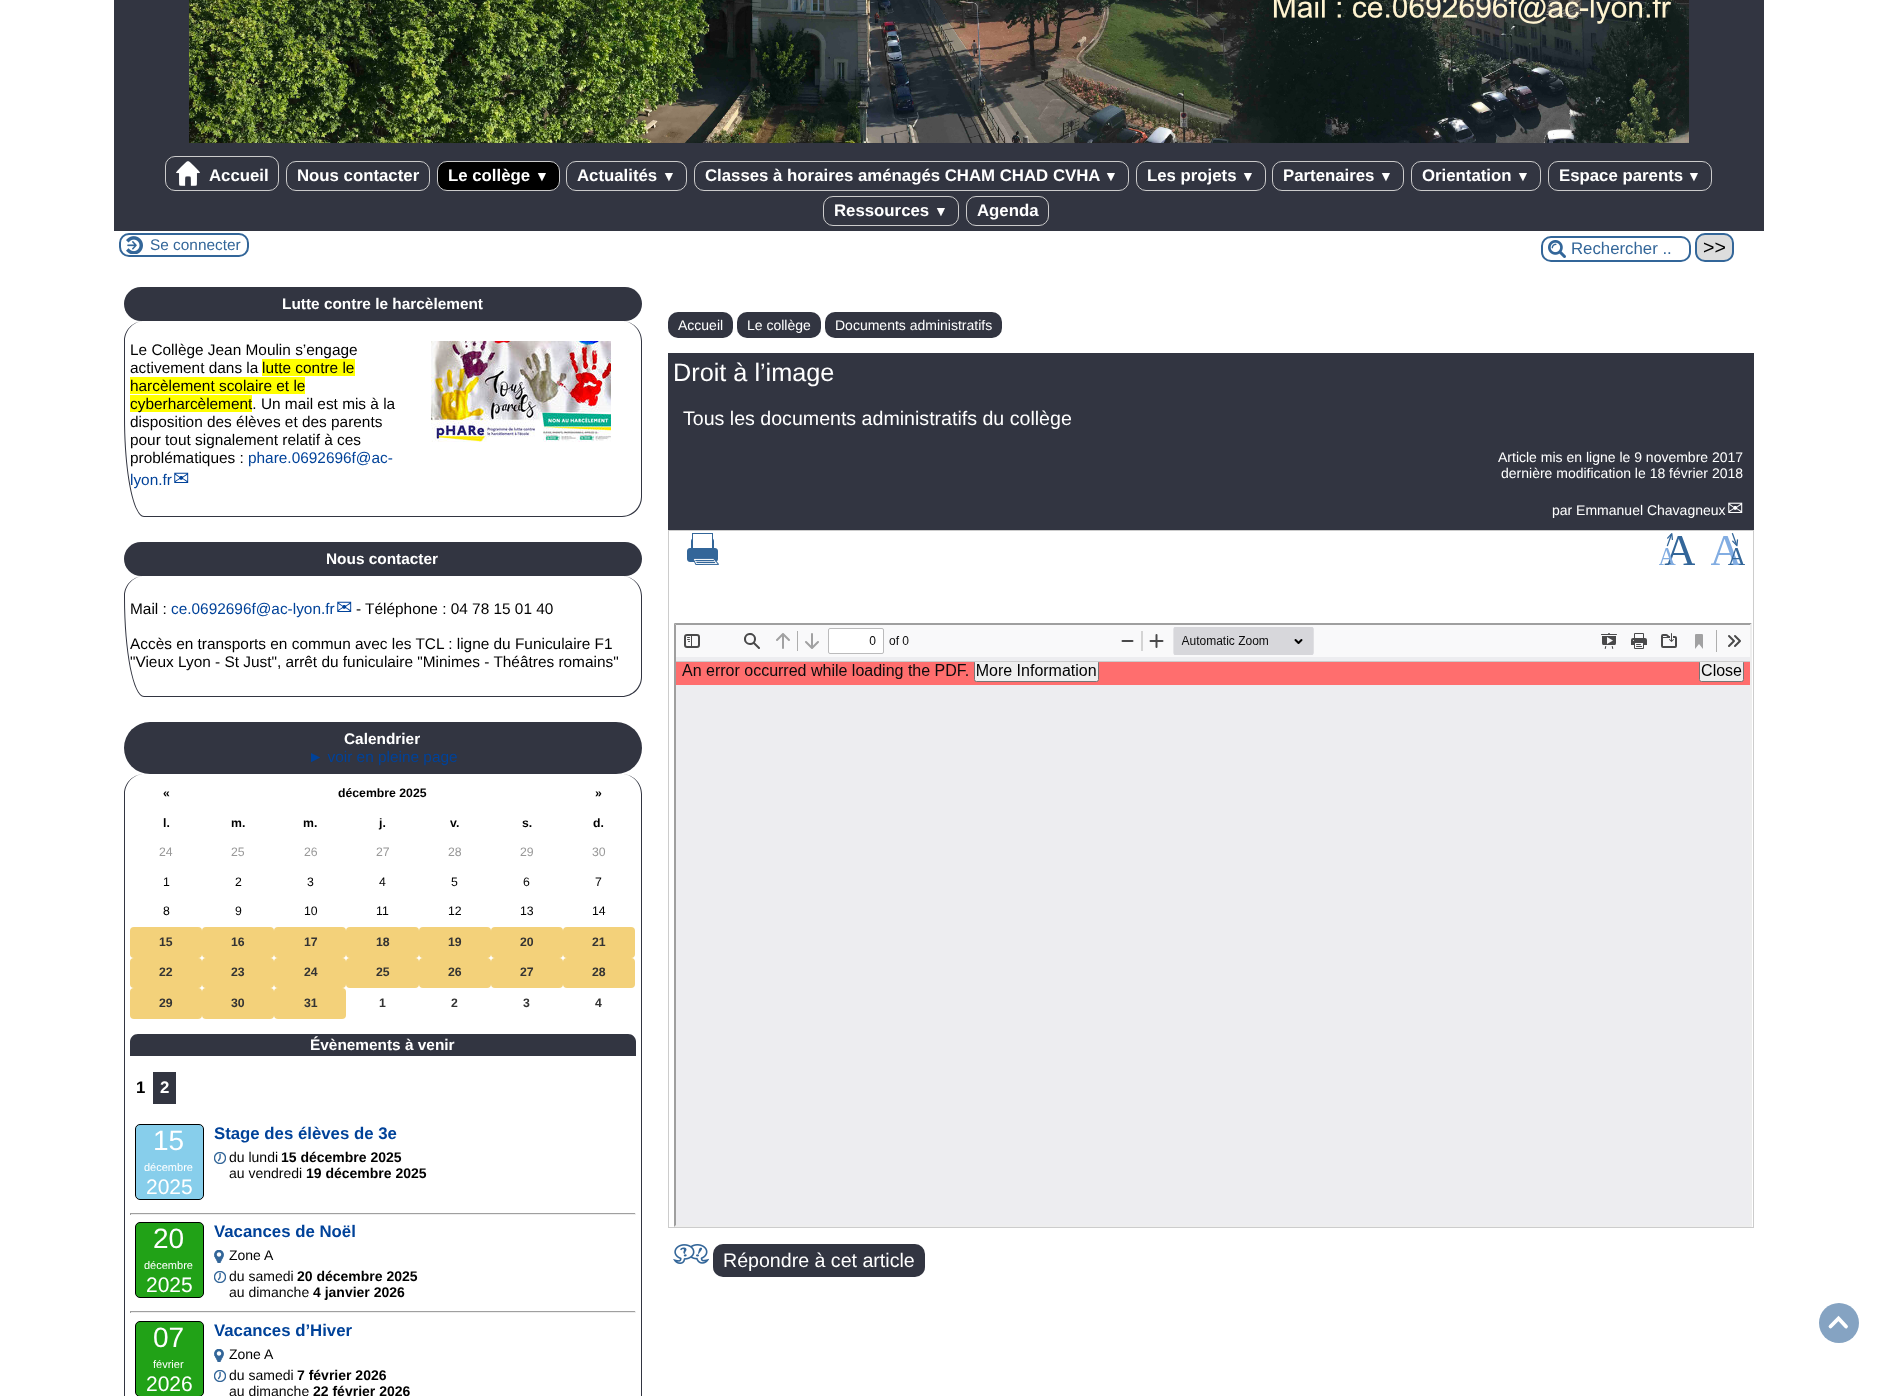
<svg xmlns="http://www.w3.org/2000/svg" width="1877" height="1396">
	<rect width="100%" height="100%" fill="#FFFFFF" />
	<rect x="114" y="0" width="1650" height="231" fill="#323541" />
	<image x="189" y="0" width="1500" height="143" href="assets/img1.png" />
	<rect x="165.5" y="156.5" width="113" height="34" rx="9.5" fill="none" stroke="#CCCCCC" />
	<image x="176" y="161" width="24" height="25" href="assets/img2.png" />
	<text x="209" y="181" font-family="Liberation Sans" font-size="16.8" font-weight="700" fill="#FFFFFF">Accueil</text>
	<rect x="286.5" y="161.5" width="143" height="29" rx="9.5" fill="none" stroke="#CCCCCC" />
	<text x="297" y="181" font-family="Liberation Sans" font-size="16.8" font-weight="700" fill="#FFFFFF">Nous contacter</text>
	<rect x="437.5" y="161.5" width="122" height="29" rx="9.5" fill="#000000" stroke="#CCCCCC" />
	<text x="448" y="181" font-family="Liberation Sans" font-size="16.8" font-weight="700" fill="#FFFFFF">Le collège</text>
	<text x="535" y="181" font-family="Liberation Sans" font-size="14" font-weight="700" fill="#FFFFFF">▼</text>
	<rect x="566.5" y="161.5" width="120" height="29" rx="9.5" fill="none" stroke="#CCCCCC" />
	<text x="577" y="181" font-family="Liberation Sans" font-size="16.8" font-weight="700" fill="#FFFFFF">Actualités</text>
	<text x="662" y="181" font-family="Liberation Sans" font-size="14" font-weight="700" fill="#FFFFFF">▼</text>
	<rect x="694.5" y="161.5" width="434" height="29" rx="9.5" fill="none" stroke="#CCCCCC" />
	<text x="705" y="181" font-family="Liberation Sans" font-size="16.8" font-weight="700" fill="#FFFFFF">Classes à horaires aménagés CHAM CHAD CVHA</text>
	<text x="1104" y="181" font-family="Liberation Sans" font-size="14" font-weight="700" fill="#FFFFFF">▼</text>
	<rect x="1136.5" y="161.5" width="129" height="29" rx="9.5" fill="none" stroke="#CCCCCC" />
	<text x="1147" y="181" font-family="Liberation Sans" font-size="16.8" font-weight="700" fill="#FFFFFF">Les projets</text>
	<text x="1241" y="181" font-family="Liberation Sans" font-size="14" font-weight="700" fill="#FFFFFF">▼</text>
	<rect x="1272.5" y="161.5" width="131" height="29" rx="9.5" fill="none" stroke="#CCCCCC" />
	<text x="1283" y="181" font-family="Liberation Sans" font-size="16.8" font-weight="700" fill="#FFFFFF">Partenaires</text>
	<text x="1379" y="181" font-family="Liberation Sans" font-size="14" font-weight="700" fill="#FFFFFF">▼</text>
	<rect x="1411.5" y="161.5" width="129" height="29" rx="9.5" fill="none" stroke="#CCCCCC" />
	<text x="1422" y="181" font-family="Liberation Sans" font-size="16.8" font-weight="700" fill="#FFFFFF">Orientation</text>
	<text x="1516" y="181" font-family="Liberation Sans" font-size="14" font-weight="700" fill="#FFFFFF">▼</text>
	<rect x="1548.5" y="161.5" width="163" height="29" rx="9.5" fill="none" stroke="#CCCCCC" />
	<text x="1559" y="181" font-family="Liberation Sans" font-size="16.8" font-weight="700" fill="#FFFFFF">Espace parents</text>
	<text x="1687" y="181" font-family="Liberation Sans" font-size="14" font-weight="700" fill="#FFFFFF">▼</text>
	<rect x="823.5" y="196.5" width="135" height="29" rx="9.5" fill="none" stroke="#CCCCCC" />
	<text x="834" y="216" font-family="Liberation Sans" font-size="16.8" font-weight="700" fill="#FFFFFF">Ressources</text>
	<text x="934" y="216" font-family="Liberation Sans" font-size="14" font-weight="700" fill="#FFFFFF">▼</text>
	<rect x="966.5" y="196.5" width="82" height="29" rx="9.5" fill="none" stroke="#CCCCCC" />
	<text x="977" y="216" font-family="Liberation Sans" font-size="16.8" font-weight="700" fill="#FFFFFF">Agenda</text>
	<image x="126" y="236" width="17" height="18" href="assets/img3.png" />
	<rect x="120" y="234" width="128" height="22" rx="9" fill="none" stroke="#336699" stroke-width="2" />
	<text x="150" y="250" font-family="Liberation Sans" font-size="15.4" fill="#336699">Se connecter</text>
	<image x="1548" y="240" width="18" height="18" href="assets/img4.png" />
	<rect x="1542" y="237" width="148" height="24" rx="9" fill="none" stroke="#336699" stroke-width="2" />
	<text x="1571" y="254" font-family="Liberation Sans" font-size="16.8" fill="#336699">Rechercher ..</text>
	<rect x="1696" y="234" width="37" height="27" rx="9" fill="#DDDDDD" stroke="#336699" stroke-width="2" />
	<text x="1703" y="254" font-family="Liberation Sans" font-size="19.6" fill="#000000">&gt;&gt;</text>
	<rect x="124" y="287" width="518" height="34" rx="17" fill="#323541" />
	<text x="282" y="309" font-family="Liberation Sans" font-size="15.4" font-weight="700" fill="#FFFFFF">Lutte contre le harcèlement</text>
	<path d="M144 321H622C633 321 642 330 642 341V497C642 508 633 517 622 517H144C133 517 124 472 124 417V341C124 330 133 321 144 321ZM144 321H622C632 321 641 330 641 341V497C641 507 632 516 622 516H144C134 516 125 472 125 417V341C125 330 134 321 144 321Z" fill="#323541" fill-rule="evenodd" />
	<g font-family="Liberation Sans" font-size="15.4" fill="#000000">
		<text x="130" y="355">Le Collège Jean Moulin s’engage</text>
		<text x="130" y="373">activement dans la</text>
	</g>
	<rect x="262" y="359" width="93" height="17" fill="#FFFF00" />
	<text x="262" y="373" font-family="Liberation Sans" font-size="15.4" fill="#000000">lutte contre le</text>
	<rect x="130" y="377" width="175" height="17" fill="#FFFF00" />
	<text x="130" y="391" font-family="Liberation Sans" font-size="15.4" fill="#000000">harcèlement scolaire et le</text>
	<rect x="130" y="395" width="122" height="17" fill="#FFFF00" />
	<g font-family="Liberation Sans" font-size="15.4" fill="#000000">
		<text x="130" y="409">cyberharcèlement. Un mail est mis à la</text>
		<text x="130" y="427">disposition des élèves et des parents</text>
		<text x="130" y="445">pour tout signalement relatif à ces</text>
		<text x="130" y="463">problématiques :</text>
	</g>
	<g font-family="Liberation Sans" font-size="15.4" fill="#004299">
		<text x="248" y="463">phare.0692696f@ac-</text>
		<text x="130" y="485">lyon.fr</text>
	</g>
	<text x="173" y="485" font-family="DejaVu Sans" font-size="19.6" fill="#004299">✉</text>
	<image x="431" y="341" width="180" height="101" href="assets/img5.png" />
	<rect x="124" y="542" width="518" height="34" rx="17" fill="#323541" />
	<text x="326" y="564" font-family="Liberation Sans" font-size="15.4" font-weight="700" fill="#FFFFFF">Nous contacter</text>
	<path d="M144 576H622C633 576 642 585 642 596V677C642 688 633 697 622 697H144C133 697 124 652 124 597V596C124 585 133 576 144 576ZM144 576H622C632 576 641 585 641 596V677C641 687 632 696 622 696H144C134 696 125 652 125 597V596C125 585 134 576 144 576Z" fill="#323541" fill-rule="evenodd" />
	<text x="130" y="614" font-family="Liberation Sans" font-size="15.4" fill="#000000">Mail :</text>
	<text x="171" y="614" font-family="Liberation Sans" font-size="15.4" fill="#004299">ce.0692696f@ac-lyon.fr</text>
	<text x="336" y="614" font-family="DejaVu Sans" font-size="19.6" fill="#004299">✉</text>
	<g font-family="Liberation Sans" font-size="15.4" fill="#000000">
		<text x="356" y="614">- Téléphone : 04 78 15 01 40</text>
		<text x="130" y="649">Accès en transports en commun avec les TCL : ligne du Funiculaire F1</text>
		<text x="130" y="667">"Vieux Lyon - St Just", arrêt du funiculaire "Minimes - Théâtres romains"</text>
	</g>
	<rect x="124" y="722" width="518" height="52" rx="26" fill="#323541" />
	<text x="344" y="744" font-family="Liberation Sans" font-size="15.4" font-weight="700" fill="#FFFFFF">Calendrier</text>
	<text x="308" y="762" font-family="Liberation Sans" font-size="15.4" fill="#004299">► voir en pleine page</text>
	<path d="M144 774H622C633 774 642 783 642 794V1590C642 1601 633 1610 622 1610H144C133 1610 124 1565 124 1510V794C124 783 133 774 144 774ZM144 774H622C632 774 641 783 641 794V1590C641 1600 632 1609 622 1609H144C134 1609 125 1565 125 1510V794C125 783 134 774 144 774Z" fill="#323541" fill-rule="evenodd" />
	<rect x="130" y="779" width="506" height="240" rx="4" fill="#FFFFFF" />
	<rect x="130" y="779" width="72" height="30" rx="4" fill="#FFFFFF" />
	<g font-family="Liberation Sans" font-size="12.25" font-weight="700" fill="#000000">
		<text x="163" y="797">«</text>
		<text x="338" y="797">décembre 2025</text>
		<text x="595" y="797">»</text>
		<text x="163" y="827">l.</text>
		<text x="231" y="827">m.</text>
		<text x="303" y="827">m.</text>
		<text x="379" y="827">j.</text>
		<text x="450" y="827">v.</text>
		<text x="522" y="827">s.</text>
		<text x="593" y="827">d.</text>
	</g>
	<g font-family="Liberation Sans" font-size="12.25" fill="#999999">
		<text x="159" y="856">24</text>
		<text x="231" y="856">25</text>
		<text x="304" y="856">26</text>
		<text x="376" y="856">27</text>
		<text x="448" y="856">28</text>
		<text x="520" y="856">29</text>
		<text x="592" y="856">30</text>
	</g>
	<g font-family="Liberation Sans" font-size="12.25" fill="#000000">
		<text x="163" y="886">1</text>
		<text x="235" y="886">2</text>
		<text x="307" y="886">3</text>
		<text x="379" y="886">4</text>
		<text x="451" y="886">5</text>
		<text x="523" y="886">6</text>
		<text x="595" y="886">7</text>
		<text x="163" y="915">8</text>
		<text x="235" y="915">9</text>
		<text x="304" y="915">10</text>
		<text x="376" y="915">11</text>
		<text x="448" y="915">12</text>
		<text x="520" y="915">13</text>
		<text x="592" y="915">14</text>
	</g>
	<rect x="130" y="927" width="72" height="31" rx="4" fill="#F3D17A" />
	<text x="159" y="946" font-family="Liberation Sans" font-size="12.25" font-weight="700" fill="#333333">15</text>
	<rect x="202" y="927" width="72" height="31" rx="4" fill="#F3D17A" />
	<text x="231" y="946" font-family="Liberation Sans" font-size="12.25" font-weight="700" fill="#333333">16</text>
	<rect x="274" y="927" width="72" height="31" rx="4" fill="#F3D17A" />
	<text x="304" y="946" font-family="Liberation Sans" font-size="12.25" font-weight="700" fill="#333333">17</text>
	<rect x="346" y="927" width="73" height="31" rx="4" fill="#F3D17A" />
	<text x="376" y="946" font-family="Liberation Sans" font-size="12.25" font-weight="700" fill="#333333">18</text>
	<rect x="419" y="927" width="72" height="31" rx="4" fill="#F3D17A" />
	<text x="448" y="946" font-family="Liberation Sans" font-size="12.25" font-weight="700" fill="#333333">19</text>
	<rect x="491" y="927" width="72" height="31" rx="4" fill="#F3D17A" />
	<text x="520" y="946" font-family="Liberation Sans" font-size="12.25" font-weight="700" fill="#333333">20</text>
	<rect x="563" y="927" width="72" height="31" rx="4" fill="#F3D17A" />
	<text x="592" y="946" font-family="Liberation Sans" font-size="12.25" font-weight="700" fill="#333333">21</text>
	<rect x="130" y="958" width="72" height="30" rx="4" fill="#F3D17A" />
	<text x="159" y="976" font-family="Liberation Sans" font-size="12.25" font-weight="700" fill="#333333">22</text>
	<rect x="202" y="958" width="72" height="30" rx="4" fill="#F3D17A" />
	<text x="231" y="976" font-family="Liberation Sans" font-size="12.25" font-weight="700" fill="#333333">23</text>
	<rect x="274" y="958" width="72" height="30" rx="4" fill="#F3D17A" />
	<text x="304" y="976" font-family="Liberation Sans" font-size="12.25" font-weight="700" fill="#333333">24</text>
	<rect x="346" y="958" width="73" height="30" rx="4" fill="#F3D17A" />
	<text x="376" y="976" font-family="Liberation Sans" font-size="12.25" font-weight="700" fill="#333333">25</text>
	<rect x="419" y="958" width="72" height="30" rx="4" fill="#F3D17A" />
	<text x="448" y="976" font-family="Liberation Sans" font-size="12.25" font-weight="700" fill="#333333">26</text>
	<rect x="491" y="958" width="72" height="30" rx="4" fill="#F3D17A" />
	<text x="520" y="976" font-family="Liberation Sans" font-size="12.25" font-weight="700" fill="#333333">27</text>
	<rect x="563" y="958" width="72" height="30" rx="4" fill="#F3D17A" />
	<text x="592" y="976" font-family="Liberation Sans" font-size="12.25" font-weight="700" fill="#333333">28</text>
	<rect x="130" y="988" width="72" height="31" rx="4" fill="#F3D17A" />
	<text x="159" y="1007" font-family="Liberation Sans" font-size="12.25" font-weight="700" fill="#333333">29</text>
	<rect x="202" y="988" width="72" height="31" rx="4" fill="#F3D17A" />
	<text x="231" y="1007" font-family="Liberation Sans" font-size="12.25" font-weight="700" fill="#333333">30</text>
	<rect x="274" y="988" width="72" height="31" rx="4" fill="#F3D17A" />
	<g font-family="Liberation Sans" font-size="12.25" font-weight="700" fill="#333333">
		<text x="304" y="1007">31</text>
		<text x="379" y="1007">1</text>
		<text x="451" y="1007">2</text>
		<text x="523" y="1007">3</text>
		<text x="595" y="1007">4</text>
	</g>
	<path d="M138 1034H628C632.5 1034 636 1037.5 636 1042V1056H130V1042C130 1037.5 133.5 1034 138 1034Z" fill="#323541" />
	<text x="310" y="1050" font-family="Liberation Sans" font-size="15.4" font-weight="700" fill="#FFFFFF">Évènements à venir</text>
	<text x="136" y="1093" font-family="Liberation Sans" font-size="16.8" font-weight="700" fill="#000000">1</text>
	<rect x="153" y="1072" width="23" height="32" fill="#323541" />
	<text x="160" y="1093" font-family="Liberation Sans" font-size="16.8" font-weight="700" fill="#FFFFFF">2</text>
	<rect x="135.5" y="1124.5" width="68" height="75" rx="4.5" fill="#87CEEB" stroke="#000000" />
	<text x="153" y="1150" font-family="Liberation Sans" font-size="28" fill="#FFFFFF">15</text>
	<text x="144" y="1171" font-family="Liberation Sans" font-size="11" fill="#FFFFFF">décembre</text>
	<text x="146" y="1194" font-family="Liberation Sans" font-size="21" fill="#FFFFFF">2025</text>
	<text x="214" y="1139" font-family="Liberation Sans" font-size="16.8" font-weight="700" fill="#004299">Stage des élèves de 3e</text>
	<image x="214" y="1152" width="12" height="12" href="assets/img6.png" />
	<text x="229" y="1162" font-family="Liberation Sans" font-size="14" fill="#000000">du lundi</text>
	<text x="281" y="1162" font-family="Liberation Sans" font-size="14" font-weight="700" fill="#000000">15 décembre 2025</text>
	<text x="229" y="1178" font-family="Liberation Sans" font-size="14" fill="#000000">au vendredi</text>
	<text x="306" y="1178" font-family="Liberation Sans" font-size="14" font-weight="700" fill="#000000">19 décembre 2025</text>
	<rect x="130" y="1213" width="506" height="1" fill="#9F9F9F" />
	<rect x="635" y="1213" width="1" height="2" fill="#EEEEEE" />
	<rect x="130" y="1214" width="506" height="1" fill="#EEEEEE" />
	<rect x="130" y="1213" width="1" height="2" fill="#9F9F9F" />
	<rect x="135.5" y="1222.5" width="68" height="75" rx="4.5" fill="#21A217" stroke="#000000" />
	<text x="153" y="1248" font-family="Liberation Sans" font-size="28" fill="#FFFFFF">20</text>
	<text x="144" y="1269" font-family="Liberation Sans" font-size="11" fill="#FFFFFF">décembre</text>
	<text x="146" y="1292" font-family="Liberation Sans" font-size="21" fill="#FFFFFF">2025</text>
	<text x="214" y="1237" font-family="Liberation Sans" font-size="16.8" font-weight="700" fill="#004299">Vacances de Noël</text>
	<image x="214" y="1250" width="10" height="13" href="assets/img7.png" />
	<text x="229" y="1260" font-family="Liberation Sans" font-size="14" fill="#000000">Zone A</text>
	<image x="214" y="1271" width="12" height="12" href="assets/img6.png" />
	<text x="229" y="1281" font-family="Liberation Sans" font-size="14" fill="#000000">du samedi</text>
	<text x="297" y="1281" font-family="Liberation Sans" font-size="14" font-weight="700" fill="#000000">20 décembre 2025</text>
	<text x="229" y="1297" font-family="Liberation Sans" font-size="14" fill="#000000">au dimanche</text>
	<text x="313" y="1297" font-family="Liberation Sans" font-size="14" font-weight="700" fill="#000000">4 janvier 2026</text>
	<rect x="130" y="1311" width="506" height="1" fill="#9F9F9F" />
	<rect x="635" y="1311" width="1" height="2" fill="#EEEEEE" />
	<rect x="130" y="1312" width="506" height="1" fill="#EEEEEE" />
	<rect x="130" y="1311" width="1" height="2" fill="#9F9F9F" />
	<rect x="135.5" y="1321.5" width="68" height="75" rx="4.5" fill="#21A217" stroke="#000000" />
	<text x="153" y="1347" font-family="Liberation Sans" font-size="28" fill="#FFFFFF">07</text>
	<text x="153" y="1368" font-family="Liberation Sans" font-size="11" fill="#FFFFFF">février</text>
	<text x="146" y="1391" font-family="Liberation Sans" font-size="21" fill="#FFFFFF">2026</text>
	<text x="214" y="1336" font-family="Liberation Sans" font-size="16.8" font-weight="700" fill="#004299">Vacances d’Hiver</text>
	<image x="214" y="1349" width="10" height="13" href="assets/img7.png" />
	<text x="229" y="1359" font-family="Liberation Sans" font-size="14" fill="#000000">Zone A</text>
	<image x="214" y="1370" width="12" height="12" href="assets/img6.png" />
	<text x="229" y="1380" font-family="Liberation Sans" font-size="14" fill="#000000">du samedi</text>
	<text x="297" y="1380" font-family="Liberation Sans" font-size="14" font-weight="700" fill="#000000">7 février 2026</text>
	<text x="229" y="1396" font-family="Liberation Sans" font-size="14" fill="#000000">au dimanche</text>
	<text x="313" y="1396" font-family="Liberation Sans" font-size="14" font-weight="700" fill="#000000">22 février 2026</text>
	<rect x="668" y="312" width="65" height="26" rx="10" fill="#323541" />
	<text x="678" y="330" font-family="Liberation Sans" font-size="14" fill="#FFFFFF">Accueil</text>
	<rect x="737" y="312" width="84" height="26" rx="10" fill="#323541" />
	<text x="747" y="330" font-family="Liberation Sans" font-size="14" fill="#FFFFFF">Le collège</text>
	<rect x="825" y="312" width="177" height="26" rx="10" fill="#323541" />
	<text x="835" y="330" font-family="Liberation Sans" font-size="14" fill="#FFFFFF">Documents administratifs</text>
	<rect x="668" y="353" width="1086" height="177" fill="#323541" />
	<text x="673" y="381" font-family="Liberation Sans" font-size="25.25" fill="#FFFFFF">Droit à l’image</text>
	<text x="683" y="425" font-family="Liberation Sans" font-size="19.6" fill="#FFFFFF">Tous les documents administratifs du collège</text>
	<g font-family="Liberation Sans" font-size="14" fill="#FFFFFF">
		<text x="1498" y="462">Article mis en ligne le 9 novembre 2017</text>
		<text x="1501" y="478">dernière modification le 18 février 2018</text>
		<text x="1552" y="515">par Emmanuel Chavagneux</text>
	</g>
	<text x="1727" y="515" font-family="DejaVu Sans" font-size="19.6" fill="#FFFFFF">✉</text>
	<rect x="668.5" y="530.5" width="1085" height="697" fill="none" stroke="#CCCCCC" />
	<image x="687" y="533" width="32" height="32" href="assets/img8.png" />
	<image x="1659" y="533" width="36" height="32" href="assets/img9.png" />
	<image x="1711" y="533" width="34" height="32" href="assets/img10.png" />
	<path d="M674 623H1752L1750 625H676Z" fill="#9F9F9F" />
	<path d="M1752 623V1227L1750 1225V625Z" fill="#EEEEEE" />
	<path d="M1752 1227H674L676 1225H1750Z" fill="#EEEEEE" />
	<path d="M674 1227V623L676 625V1225Z" fill="#9F9F9F" />
	<image x="676" y="625" width="1074" height="600" href="assets/img11.png" />
	<image x="673" y="1244" width="36" height="20" href="assets/img12.png" />
	<rect x="713" y="1244" width="212" height="33" rx="10" fill="#323541" />
	<text x="723" y="1267" font-family="Liberation Sans" font-size="19.6" fill="#FFFFFF">Répondre à cet article</text>
	<circle cx="1839" cy="1323" r="20" fill="#85A3C2" />
	<path d="M1830.5 1326.5L1838.5 1318.5L1846 1326.5" fill="none" stroke="#FFFFFF" stroke-width="3.8" stroke-linecap="round" />
</svg>
